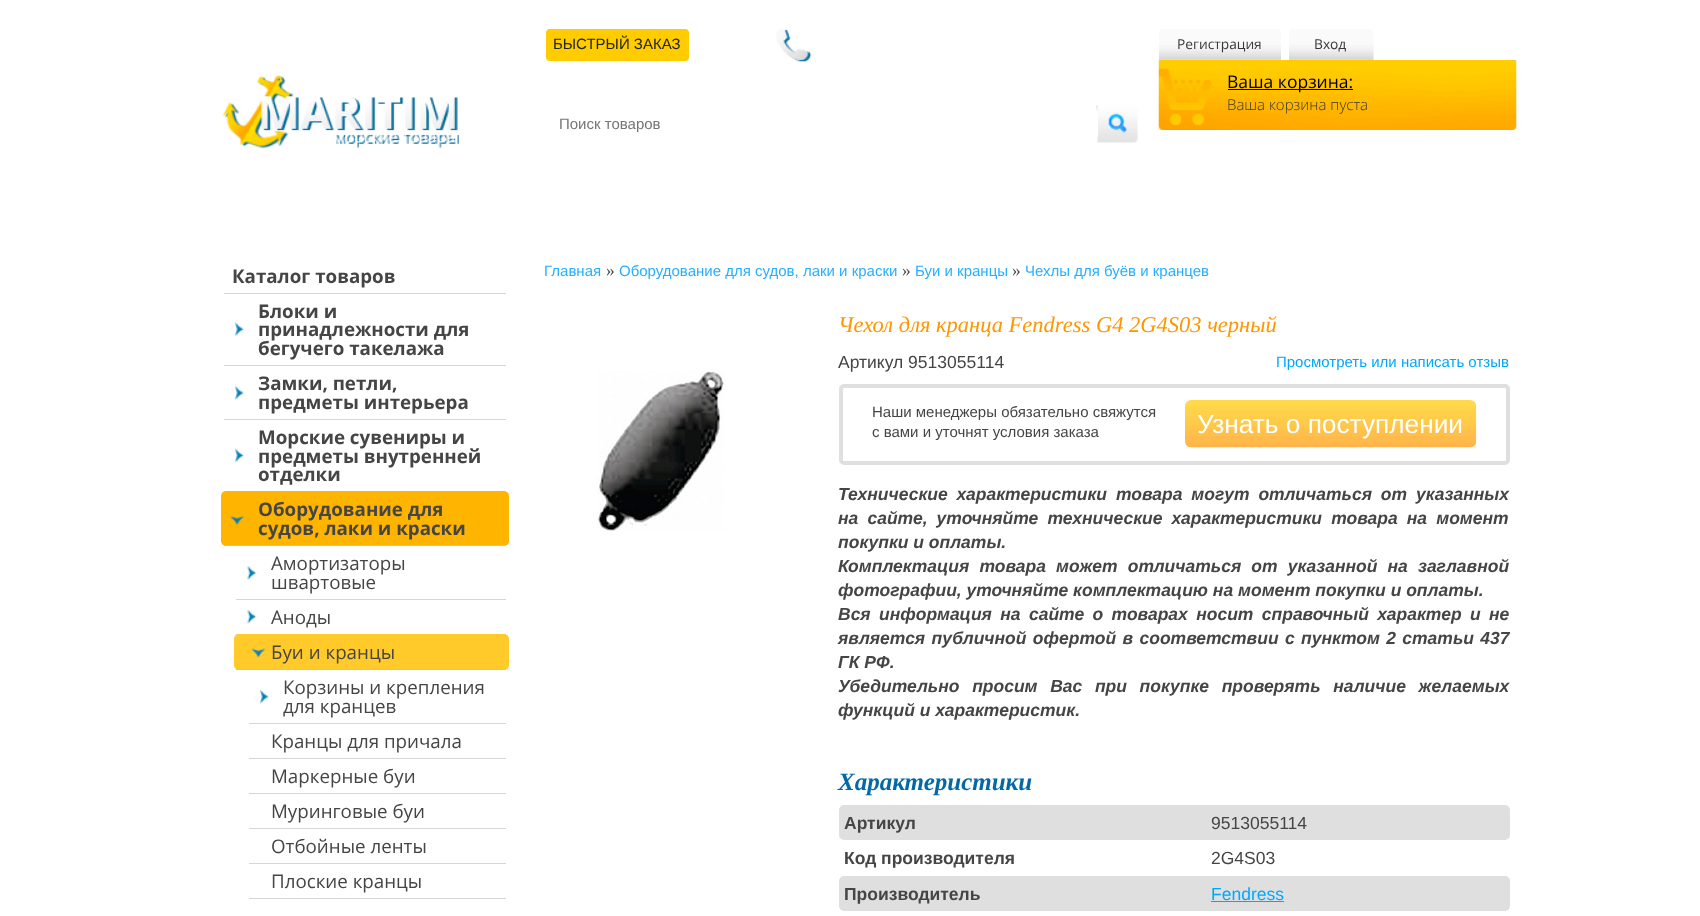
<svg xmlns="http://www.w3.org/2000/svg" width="1700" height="916">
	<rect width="100%" height="100%" fill="#FFFFFF" />
	<image x="222" y="75" width="237" height="74" href="assets/img1.png" />
	<rect x="546" y="29" width="143" height="32" rx="4" fill="#FFCC00" />
	<text x="553" y="49" font-family="Liberation Sans" font-size="15" fill="#242424">БЫСТРЫЙ ЗАКАЗ</text>
	<image x="776" y="29" width="36" height="33" href="assets/img2.png" />
	<image x="1159" y="29" width="122" height="31" href="assets/img3.png" />
	<text x="1177" y="49" font-family="Open Sans" font-size="13.75" fill="#383838">Регистрация</text>
	<image x="1289" y="29" width="85" height="31" href="assets/img4.png" />
	<text x="1314" y="49" font-family="Open Sans" font-size="13.75" fill="#383838">Вход</text>
	<image x="1158" y="60" width="359" height="70" href="assets/img5.png" />
	<rect x="1228" y="89" width="125" height="1" fill="#000000" />
	<text x="1227" y="88" font-family="Open Sans" font-size="17.5" fill="#000000">Ваша корзина:</text>
	<text x="1227" y="110" font-family="Open Sans" font-size="15" font-weight="300" fill="#383838">Ваша корзина пуста</text>
	<image x="1096" y="105" width="42" height="38" href="assets/img6.png" />
	<rect x="548" y="105" width="550" height="38" rx="9" fill="#FFFFFF" />
	<text x="559" y="129" font-family="Liberation Sans" font-size="15" fill="#757575">Поиск товаров</text>
	<rect x="224" y="293" width="282" height="1" fill="#D6D6D6" />
	<text x="232" y="283" font-family="Open Sans" font-size="18.75" font-weight="700" fill="#454545">Каталог товаров</text>
	<image x="230" y="321" width="14" height="16" href="assets/img7.png" />
	<rect x="224" y="365" width="282" height="1" fill="#D6D6D6" />
	<g font-family="Open Sans" font-size="18.75" font-weight="700" fill="#454545">
		<text x="258" y="318">Блоки и</text>
		<text x="258" y="336">принадлежности для</text>
		<text x="258" y="355">бегучего такелажа</text>
	</g>
	<image x="230" y="385" width="14" height="15" href="assets/img8.png" />
	<rect x="224" y="419" width="282" height="1" fill="#D6D6D6" />
	<g font-family="Open Sans" font-size="18.75" font-weight="700" fill="#454545">
		<text x="258" y="390">Замки, петли,</text>
		<text x="258" y="409">предметы интерьера</text>
	</g>
	<image x="230" y="448" width="14" height="15" href="assets/img9.png" />
	<g font-family="Open Sans" font-size="18.75" font-weight="700" fill="#454545">
		<text x="258" y="444">Морские сувениры и</text>
		<text x="258" y="463">предметы внутренней</text>
		<text x="258" y="481">отделки</text>
	</g>
	<rect x="221" y="491" width="288" height="55" rx="5" fill="#FFB400" />
	<image x="230" y="511" width="15" height="14" href="assets/img10.png" />
	<rect x="224" y="545" width="282" height="1" fill="#FFCC00" />
	<g font-family="Open Sans" font-size="18.75" font-weight="700" fill="#454545">
		<text x="258" y="516">Оборудование для</text>
		<text x="258" y="535">судов, лаки и краски</text>
	</g>
	<image x="242" y="565" width="15" height="15" href="assets/img11.png" />
	<rect x="236" y="599" width="270" height="1" fill="#D6D6D6" />
	<g font-family="Open Sans" font-size="18.75" fill="#454545">
		<text x="271" y="570">Амортизаторы</text>
		<text x="271" y="589">швартовые</text>
	</g>
	<image x="242" y="609" width="15" height="15" href="assets/img12.png" />
	<rect x="236" y="634" width="270" height="1" fill="#D6D6D6" />
	<text x="271" y="624" font-family="Open Sans" font-size="18.75" fill="#454545">Аноды</text>
	<rect x="234" y="634" width="275" height="36" rx="5" fill="#FFCA2A" />
	<image x="251" y="644" width="15" height="14" href="assets/img13.png" />
	<rect x="236" y="669" width="270" height="1" fill="#FFCC00" />
	<text x="271" y="659" font-family="Open Sans" font-size="18.75" fill="#454545">Буи и кранцы</text>
	<image x="255" y="689" width="14" height="15" href="assets/img14.png" />
	<rect x="249" y="723" width="257" height="1" fill="#D6D6D6" />
	<g font-family="Open Sans" font-size="18.75" fill="#454545">
		<text x="283" y="694">Корзины и крепления</text>
		<text x="283" y="713">для кранцев</text>
	</g>
	<rect x="249" y="758" width="257" height="1" fill="#D6D6D6" />
	<text x="271" y="748" font-family="Open Sans" font-size="18.75" fill="#454545">Кранцы для причала</text>
	<rect x="249" y="793" width="257" height="1" fill="#D6D6D6" />
	<text x="271" y="783" font-family="Open Sans" font-size="18.75" fill="#454545">Маркерные буи</text>
	<rect x="249" y="828" width="257" height="1" fill="#D6D6D6" />
	<text x="271" y="818" font-family="Open Sans" font-size="18.75" fill="#454545">Муринговые буи</text>
	<rect x="249" y="863" width="257" height="1" fill="#D6D6D6" />
	<text x="271" y="853" font-family="Open Sans" font-size="18.75" fill="#454545">Отбойные ленты</text>
	<rect x="249" y="898" width="257" height="1" fill="#D6D6D6" />
	<text x="271" y="888" font-family="Open Sans" font-size="18.75" fill="#454545">Плоские кранцы</text>
	<text x="544" y="276" font-family="Liberation Sans" font-size="15" fill="#26AFFF">Главная</text>
	<text x="606" y="276" font-family="Liberation Serif" font-size="17.5" fill="#454545">»</text>
	<text x="619" y="276" font-family="Liberation Sans" font-size="15" fill="#26AFFF">Оборудование для судов, лаки и краски</text>
	<text x="902" y="276" font-family="Liberation Serif" font-size="17.5" fill="#454545">»</text>
	<text x="915" y="276" font-family="Liberation Sans" font-size="15" fill="#26AFFF">Буи и кранцы</text>
	<text x="1012" y="276" font-family="Liberation Serif" font-size="17.5" fill="#454545">»</text>
	<text x="1025" y="276" font-family="Liberation Sans" font-size="15" fill="#26AFFF">Чехлы для буёв и кранцев</text>
	<image x="597" y="371" width="128" height="160" href="assets/img15.png" />
	<text x="838" y="332" font-family="Liberation Serif" font-size="22.5" font-style="italic" fill="#FF9600">Чехол для кранца Fendress G4 2G4S03 черный</text>
	<text x="838" y="368" font-family="Liberation Sans" font-size="17.5" fill="#454545">Артикул 9513055114</text>
	<text x="1276" y="367" font-family="Liberation Sans" font-size="15" fill="#00A8FD">Просмотреть или написать отзыв</text>
	<rect x="841" y="386" width="667" height="77" rx="3" fill="none" stroke="#DFDFDF" stroke-width="4" />
	<g font-family="Liberation Sans" font-size="15" fill="#454545">
		<text x="872" y="417">Наши менеджеры обязательно свяжутся</text>
		<text x="872" y="437">с вами и уточнят условия заказа</text>
	</g>
	<image x="1185" y="400" width="292" height="48" href="assets/img16.png" />
	<text x="1197" y="433" font-family="Liberation Sans" font-size="26.25" fill="#FFFFFF">Узнать о поступлении</text>
	<g font-family="Liberation Sans" font-size="17.5" font-weight="700" font-style="italic" fill="#454545">
		<text x="838" y="500" word-spacing="4">Технические характеристики товара могут отличаться от указанных</text>
		<text x="838" y="524" word-spacing="4.25">на сайте, уточняйте технические характеристики товара на момент</text>
		<text x="838" y="548">покупки и оплаты.</text>
		<text x="838" y="572" word-spacing="5.25">Комплектация товара может отличаться от указанной на заглавной</text>
		<text x="838" y="596">фотографии, уточняйте комплектацию на момент покупки и оплаты.</text>
		<text x="838" y="620" word-spacing="3.5">Вся информация на сайте о товарах носит справочный характер и не</text>
		<text x="838" y="644" word-spacing="1.5">является публичной офертой в соответствии с пунктом 2 статьи 437</text>
		<text x="838" y="668">ГК РФ.</text>
		<text x="838" y="692" word-spacing="7.75">Убедительно просим Вас при покупке проверять наличие желаемых</text>
		<text x="838" y="716">функций и характеристик.</text>
	</g>
	<text x="838" y="790" font-family="Liberation Serif" font-size="25" font-weight="700" font-style="italic" fill="#0268A6">Характеристики</text>
	<rect x="839" y="805" width="671" height="35" rx="5" fill="#DFDFDF" />
	<text x="844" y="829" font-family="Liberation Sans" font-size="17.5" font-weight="700" fill="#454545">Артикул</text>
	<text x="1211" y="829" font-family="Liberation Sans" font-size="17.5" fill="#454545">9513055114</text>
	<text x="844" y="864" font-family="Liberation Sans" font-size="17.5" font-weight="700" fill="#454545">Код производителя</text>
	<text x="1211" y="864" font-family="Liberation Sans" font-size="17.5" fill="#454545">2G4S03</text>
	<rect x="839" y="876" width="671" height="35" rx="5" fill="#DFDFDF" />
	<text x="844" y="900" font-family="Liberation Sans" font-size="17.5" font-weight="700" fill="#454545">Производитель</text>
	<text x="1211" y="900" font-family="Liberation Sans" font-size="17.5" fill="#00A8FD">Fendress</text>
	<rect x="1211" y="901" width="73" height="1" fill="#00A8FD" />
</svg>
